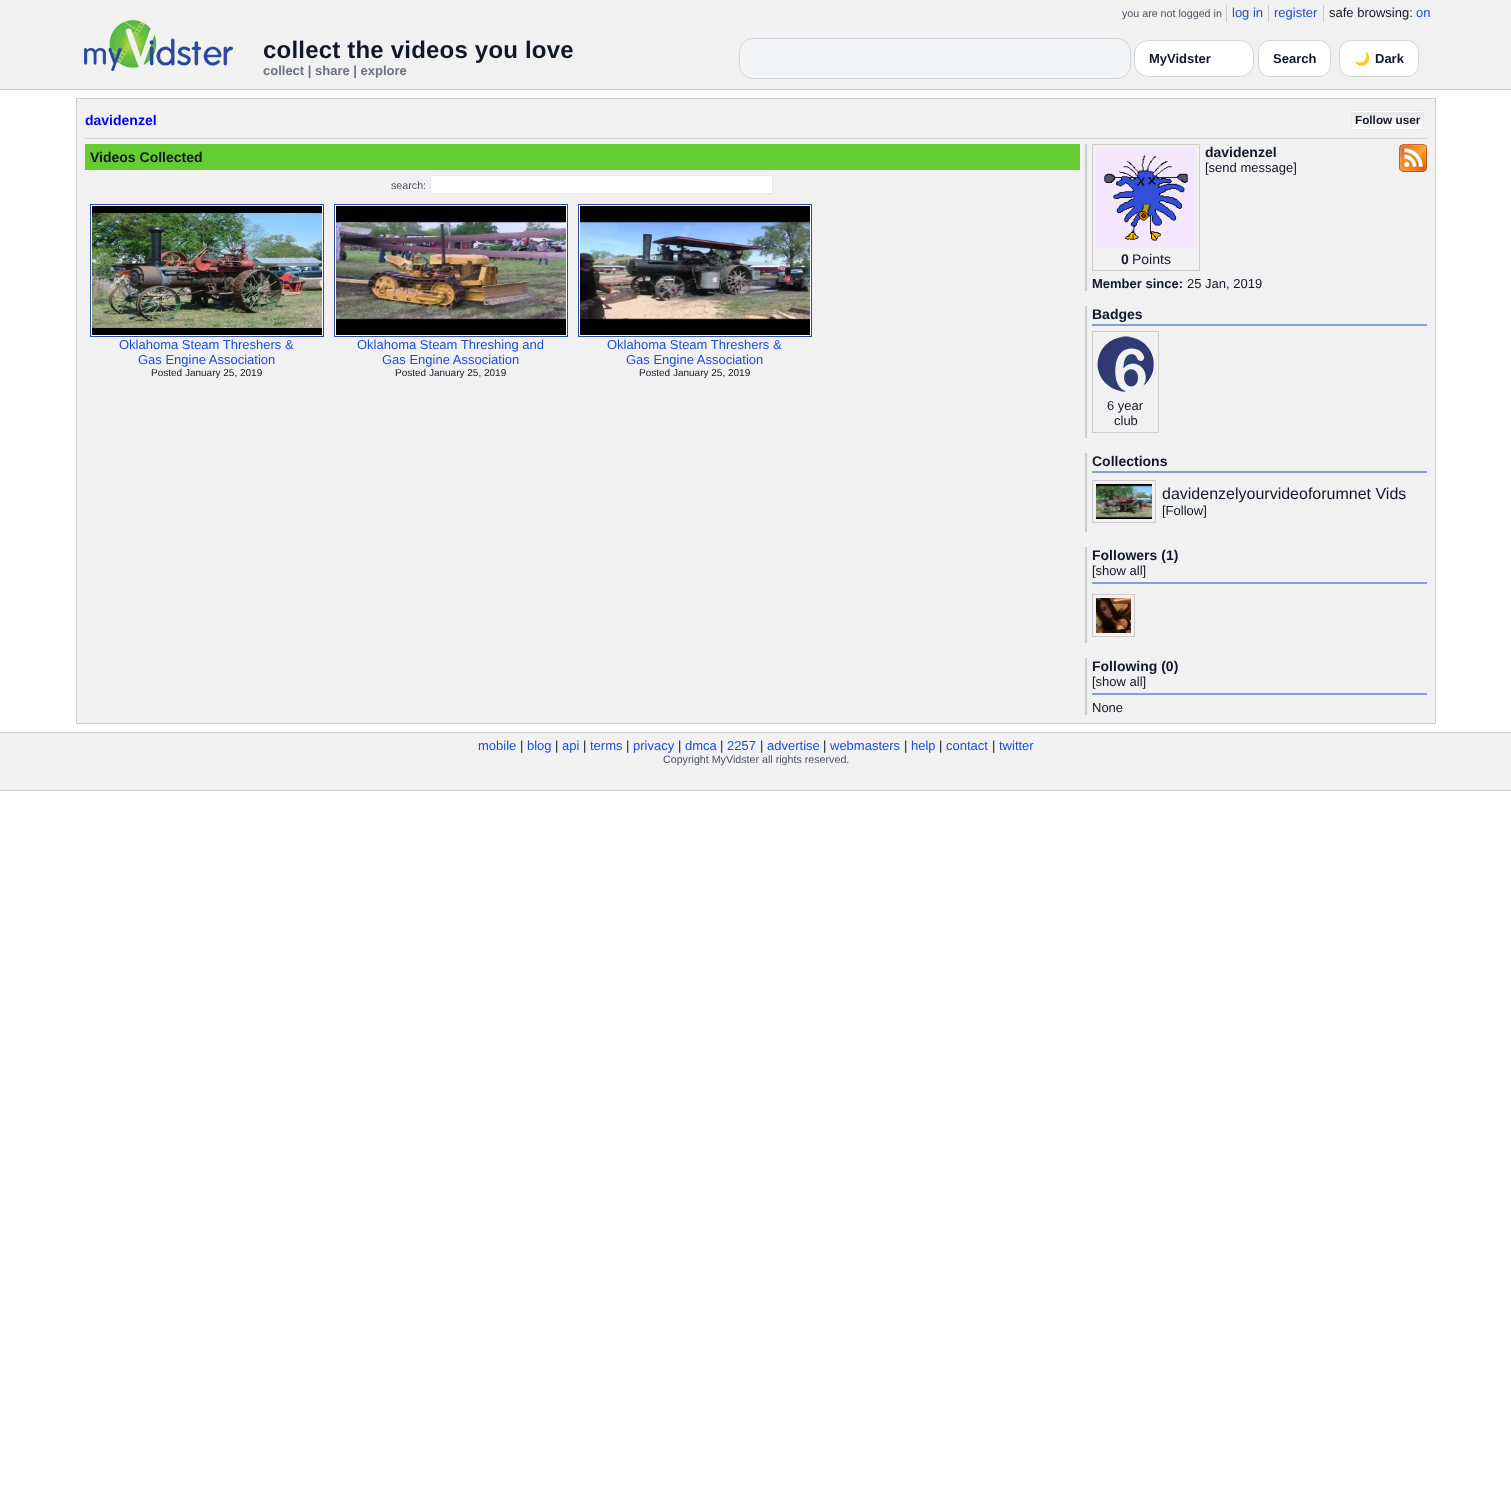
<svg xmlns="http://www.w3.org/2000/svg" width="1511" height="1511">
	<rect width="100%" height="100%" fill="#FFFFFF" />
	<rect x="0" y="0" width="1511" height="89" fill="#F1F1F1" />
	<rect x="0" y="89" width="1511" height="1" fill="#CCCCCC" />
	<image x="84" y="20" width="149" height="51" href="assets/img1.png" />
	<rect x="1226" y="5" width="1" height="17" fill="#CCCCCC" />
	<text x="1122" y="17" font-family="Liberation Sans" font-size="10.7" fill="#4B5563">you are not logged in</text>
	<rect x="1268" y="5" width="1" height="17" fill="#CCCCCC" />
	<text x="1232" y="17" font-family="Liberation Sans" font-size="13" fill="#1D4ED8">log in</text>
	<rect x="1323" y="5" width="1" height="17" fill="#CCCCCC" />
	<text x="1274" y="17" font-family="Liberation Sans" font-size="13" fill="#1D4ED8">register</text>
	<text x="1329" y="17" font-family="Liberation Sans" font-size="13" fill="#111827">safe browsing:</text>
	<text x="1416" y="17" font-family="Liberation Sans" font-size="13" fill="#1D4ED8">on</text>
	<text x="263" y="58" font-family="Liberation Sans" font-size="24" font-weight="700" letter-spacing="0.2" fill="#111827">collect the videos you love</text>
	<text x="263" y="75" font-family="Liberation Sans" font-size="13" font-weight="700" fill="#6B7280">collect | share | explore</text>
	<rect x="739.5" y="38.5" width="391" height="40" rx="13.5" fill="#F3F4F6" stroke="#D1D5DB" />
	<rect x="1134.5" y="40.5" width="119" height="36" rx="13.5" fill="#FFFFFF" stroke="#D1D5DB" />
	<text x="1149" y="63" font-family="Liberation Sans" font-size="13" font-weight="700" fill="#111827">MyVidster</text>
	<rect x="1258.5" y="40.5" width="72" height="36" rx="11.5" fill="#FFFFFF" stroke="#D1D5DB" />
	<text x="1273" y="63" font-family="Liberation Sans" font-size="13" font-weight="700" fill="#111827">Search</text>
	<rect x="1339.5" y="40.5" width="79" height="36" rx="11.5" fill="#FFFFFF" stroke="#D1D5DB" />
	<text x="1354" y="63" font-family="Noto Color Emoji" font-size="13" font-weight="700" fill="#111827">🌙</text>
	<text x="1375" y="63" font-family="Liberation Sans" font-size="13" font-weight="700" fill="#111827">Dark</text>
	<rect x="76.5" y="98.5" width="1359" height="625" fill="#F1F1F1" stroke="#CCCCCC" />
	<rect x="85" y="138" width="1342" height="1" fill="#D1D5DB" />
	<text x="85" y="125" font-family="Liberation Sans" font-size="14" font-weight="700" fill="#0000FF">davidenzel</text>
	<rect x="1352" y="111" width="71" height="18" fill="#FFFFFF" />
	<image x="1352" y="112" width="71" height="15" href="assets/img2.png" />
	<rect x="1351.5" y="110.5" width="72" height="19" fill="none" stroke="#E5E7EB" />
	<text x="1355" y="124" font-family="Liberation Sans" font-size="11.75" font-weight="700" fill="#111827">Follow user</text>
	<rect x="85" y="144" width="995" height="26" fill="#66CC33" />
	<text x="90" y="162" font-family="Liberation Sans" font-size="14" font-weight="700" fill="#111827">Videos Collected</text>
	<text x="391" y="189" font-family="Liberation Sans" font-size="10.7" fill="#4B5563">search:</text>
	<rect x="430.5" y="175.5" width="342" height="18" fill="#FFFFFF" stroke="#E5E7EB" />
	<rect x="90.5" y="204.5" width="233" height="132" fill="#FFFFFF" stroke="#2B4A9F" />
	<image x="92" y="206" width="230" height="129" href="assets/img3.png" />
	<g font-family="Liberation Sans" font-size="13" fill="#1D4ED8">
		<text x="119" y="349">Oklahoma Steam Threshers &amp;</text>
		<text x="138" y="364">Gas Engine Association</text>
	</g>
	<text x="151" y="376" font-family="Liberation Sans" font-size="10" fill="#111827">Posted January 25, 2019</text>
	<rect x="334.5" y="204.5" width="233" height="132" fill="#FFFFFF" stroke="#2B4A9F" />
	<image x="336" y="206" width="230" height="129" href="assets/img4.png" />
	<g font-family="Liberation Sans" font-size="13" fill="#1D4ED8">
		<text x="357" y="349">Oklahoma Steam Threshing and</text>
		<text x="382" y="364">Gas Engine Association</text>
	</g>
	<text x="395" y="376" font-family="Liberation Sans" font-size="10" fill="#111827">Posted January 25, 2019</text>
	<rect x="578.5" y="204.5" width="233" height="132" fill="#FFFFFF" stroke="#2B4A9F" />
	<image x="580" y="206" width="230" height="129" href="assets/img5.png" />
	<g font-family="Liberation Sans" font-size="13" fill="#1D4ED8">
		<text x="607" y="349">Oklahoma Steam Threshers &amp;</text>
		<text x="626" y="364">Gas Engine Association</text>
	</g>
	<text x="639" y="376" font-family="Liberation Sans" font-size="10" fill="#111827">Posted January 25, 2019</text>
	<rect x="1085" y="144" width="2" height="147" fill="#CCCCCC" />
	<text x="1205" y="157" font-family="Liberation Sans" font-size="14" font-weight="700" fill="#111827">davidenzel</text>
	<image x="1399" y="144" width="28" height="28" href="assets/img6.png" />
	<text x="1205" y="172" font-family="Liberation Sans" font-size="13" fill="#111827">[send message]</text>
	<rect x="1092.5" y="144.5" width="107" height="126" fill="none" stroke="#CCCCCC" />
	<image x="1096" y="148" width="100" height="100" href="assets/img7.png" />
	<text x="1121" y="264" font-family="Liberation Sans" font-size="14" font-weight="700" fill="#111827">0</text>
	<text x="1132" y="264" font-family="Liberation Sans" font-size="14" fill="#111827">Points</text>
	<text x="1092" y="288" font-family="Liberation Sans" font-size="13" font-weight="700" fill="#111827">Member since:</text>
	<text x="1187" y="288" font-family="Liberation Sans" font-size="13" fill="#111827">25 Jan, 2019</text>
	<rect x="1085" y="306" width="2" height="132" fill="#CCCCCC" />
	<text x="1092" y="319" font-family="Liberation Sans" font-size="14" font-weight="700" fill="#111827">Badges</text>
	<rect x="1092" y="324" width="335" height="2" fill="#879EDE" />
	<rect x="1092.5" y="331.5" width="66" height="101" fill="none" stroke="#CCCCCC" />
	<image x="1097" y="336" width="57" height="56" href="assets/img8.png" />
	<g font-family="Liberation Sans" font-size="13" fill="#111827">
		<text x="1107" y="410">6 year</text>
		<text x="1114" y="425">club</text>
	</g>
	<rect x="1085" y="453" width="2" height="79" fill="#CCCCCC" />
	<text x="1092" y="466" font-family="Liberation Sans" font-size="14" font-weight="700" fill="#111827">Collections</text>
	<rect x="1092" y="471" width="335" height="2" fill="#879EDE" />
	<rect x="1092.5" y="480.5" width="63" height="42" fill="none" stroke="#CCCCCC" />
	<image x="1096" y="484" width="56" height="35" href="assets/img9.png" />
	<text x="1162" y="499" font-family="Liberation Sans" font-size="16" fill="#111827">davidenzelyourvideoforumnet Vids</text>
	<text x="1162" y="515" font-family="Liberation Sans" font-size="13" fill="#111827">[Follow]</text>
	<rect x="1085" y="547" width="2" height="96" fill="#CCCCCC" />
	<text x="1092" y="560" font-family="Liberation Sans" font-size="14" font-weight="700" fill="#111827">Followers (1)</text>
	<text x="1092" y="575" font-family="Liberation Sans" font-size="13" fill="#111827">[show all]</text>
	<rect x="1092" y="582" width="335" height="2" fill="#879EDE" />
	<rect x="1092.5" y="594.5" width="42" height="42" fill="none" stroke="#CCCCCC" />
	<image x="1096" y="598" width="35" height="35" href="assets/img10.png" />
	<rect x="1085" y="658" width="2" height="57" fill="#CCCCCC" />
	<text x="1092" y="671" font-family="Liberation Sans" font-size="14" font-weight="700" fill="#111827">Following (0)</text>
	<text x="1092" y="686" font-family="Liberation Sans" font-size="13" fill="#111827">[show all]</text>
	<rect x="1092" y="693" width="335" height="2" fill="#879EDE" />
	<text x="1092" y="712" font-family="Liberation Sans" font-size="13" fill="#111827">None</text>
	<rect x="0" y="733" width="1511" height="57" fill="#F1F1F1" />
	<rect x="0" y="790" width="1511" height="1" fill="#CCCCCC" />
	<rect x="0" y="732" width="1511" height="1" fill="#CCCCCC" />
	<text x="478" y="750" font-family="Liberation Sans" font-size="13" fill="#1D4ED8">mobile</text>
	<text x="520" y="750" font-family="Liberation Sans" font-size="13" fill="#111827">|</text>
	<text x="527" y="750" font-family="Liberation Sans" font-size="13" fill="#1D4ED8">blog</text>
	<text x="555" y="750" font-family="Liberation Sans" font-size="13" fill="#111827">|</text>
	<text x="562" y="750" font-family="Liberation Sans" font-size="13" fill="#1D4ED8">api</text>
	<text x="583" y="750" font-family="Liberation Sans" font-size="13" fill="#111827">|</text>
	<text x="590" y="750" font-family="Liberation Sans" font-size="13" fill="#1D4ED8">terms</text>
	<text x="626" y="750" font-family="Liberation Sans" font-size="13" fill="#111827">|</text>
	<text x="633" y="750" font-family="Liberation Sans" font-size="13" fill="#1D4ED8">privacy</text>
	<text x="678" y="750" font-family="Liberation Sans" font-size="13" fill="#111827">|</text>
	<text x="685" y="750" font-family="Liberation Sans" font-size="13" fill="#1D4ED8">dmca</text>
	<text x="720" y="750" font-family="Liberation Sans" font-size="13" fill="#111827">|</text>
	<text x="727" y="750" font-family="Liberation Sans" font-size="13" fill="#1D4ED8">2257</text>
	<text x="760" y="750" font-family="Liberation Sans" font-size="13" fill="#111827">|</text>
	<text x="767" y="750" font-family="Liberation Sans" font-size="13" fill="#1D4ED8">advertise</text>
	<text x="823" y="750" font-family="Liberation Sans" font-size="13" fill="#111827">|</text>
	<text x="830" y="750" font-family="Liberation Sans" font-size="13" fill="#1D4ED8">webmasters</text>
	<text x="904" y="750" font-family="Liberation Sans" font-size="13" fill="#111827">|</text>
	<text x="911" y="750" font-family="Liberation Sans" font-size="13" fill="#1D4ED8">help</text>
	<text x="939" y="750" font-family="Liberation Sans" font-size="13" fill="#111827">|</text>
	<text x="946" y="750" font-family="Liberation Sans" font-size="13" fill="#1D4ED8">contact</text>
	<text x="992" y="750" font-family="Liberation Sans" font-size="13" fill="#111827">|</text>
	<text x="999" y="750" font-family="Liberation Sans" font-size="13" fill="#1D4ED8">twitter</text>
	<text x="663" y="763" font-family="Liberation Sans" font-size="10.7" fill="#4B5563">Copyright MyVidster all rights reserved.</text>
</svg>
